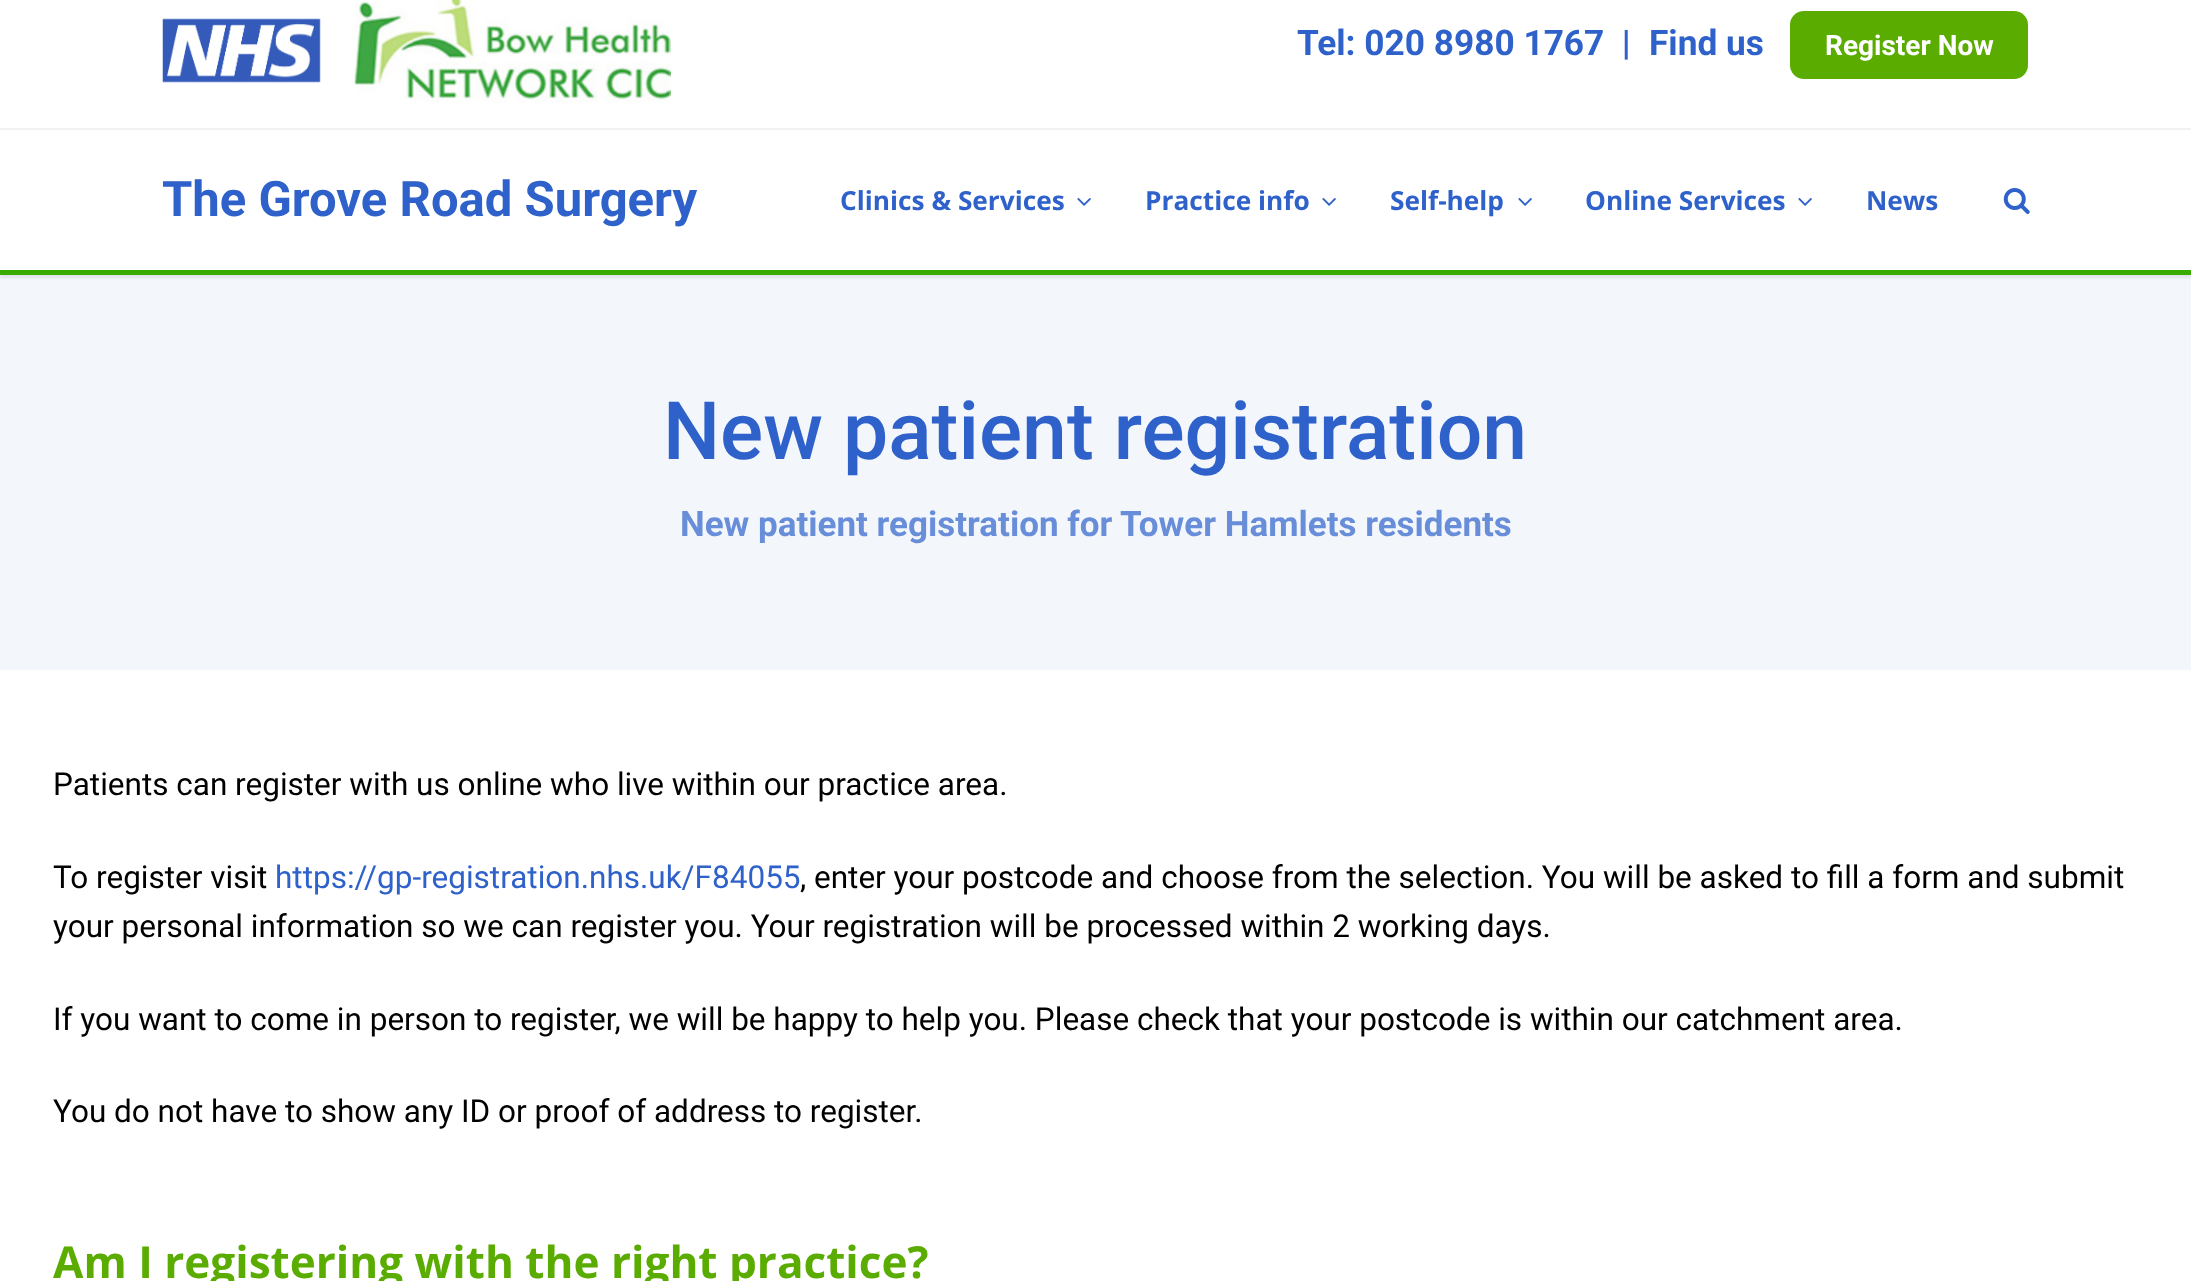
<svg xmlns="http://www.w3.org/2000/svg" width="2191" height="1281">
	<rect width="100%" height="100%" fill="#FFFFFF" />
	<rect x="0" y="275" width="2191" height="395" fill="#F3F7FC" />
	<rect x="0" y="-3" width="2191" height="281" fill="#000000" fill-opacity="0.08" filter="blur(1px)" />
	<rect x="0" y="0" width="2191" height="270" fill="#FFFFFF" />
	<rect x="0" y="270" width="2191" height="5" fill="#3AAC00" />
	<rect x="0" y="128" width="2191" height="2" fill="#F2F2F2" />
	<image x="162" y="18" width="159" height="65" href="assets/img1.png" />
	<image x="354" y="0" width="317" height="103" href="assets/img2.png" />
	<g font-family="Roboto" font-size="35.25" font-weight="700" fill="#2E61CA">
		<text x="1297" y="55" xml:space="preserve">Tel: 020 8980 1767  |</text>
		<text x="1649" y="55">Find us</text>
	</g>
	<rect x="1790" y="11" width="238" height="68" rx="14" fill="#5AAC00" />
	<text x="1825" y="55" font-family="Roboto" font-size="28" font-weight="700" fill="#FFFFFF">Register Now</text>
	<text x="162" y="216" font-family="Roboto" font-size="49" font-weight="700" fill="#2E61CA">The Grove Road Surgery</text>
	<text x="840" y="210" font-family="Open Sans" font-size="26.25" font-weight="700" fill="#2E61CA">Clinics &amp; Services</text>
	<image x="1077" y="198" width="14" height="8" href="assets/img3.png" />
	<text x="1145" y="210" font-family="Open Sans" font-size="26.25" font-weight="700" fill="#2E61CA">Practice info</text>
	<image x="1322" y="198" width="14" height="8" href="assets/img3.png" />
	<text x="1390" y="210" font-family="Open Sans" font-size="26.25" font-weight="700" fill="#2E61CA">Self-help</text>
	<image x="1518" y="198" width="14" height="8" href="assets/img3.png" />
	<text x="1585" y="210" font-family="Open Sans" font-size="26.25" font-weight="700" fill="#2E61CA">Online Services</text>
	<image x="1798" y="198" width="14" height="8" href="assets/img3.png" />
	<text x="1866" y="210" font-family="Open Sans" font-size="26.25" font-weight="700" fill="#2E61CA">News</text>
	<image x="2003" y="188" width="27" height="26" href="assets/img4.png" />
	<text x="663" y="459" font-family="Roboto" font-size="80.5" font-weight="500" fill="#2E61CA">New patient registration</text>
	<text x="680" y="536" font-family="Roboto" font-size="35" font-weight="700" fill="#698ED9">New patient registration for Tower Hamlets residents</text>
	<g font-family="Roboto" font-size="31.5" fill="#000000">
		<text x="53" y="795">Patients can register with us online who live within our practice area.</text>
		<text x="53" y="888">To register visit</text>
	</g>
	<text x="275" y="888" font-family="Roboto" font-size="31.5" fill="#2E61CA">https://gp-registration.nhs.uk/F84055</text>
	<g font-family="Roboto" font-size="31.5" fill="#000000">
		<text x="800" y="888">, enter your postcode and choose from the selection. You will be asked to fill a form and submit</text>
		<text x="53" y="937">your personal information so we can register you. Your registration will be processed within 2 working days.</text>
		<text x="53" y="1030">If you want to come in person to register, we will be happy to help you. Please check that your postcode is within our catchment area.</text>
		<text x="53" y="1122">You do not have to show any ID or proof of address to register.</text>
	</g>
	<text x="53" y="1278" font-family="Open Sans" font-size="44.1" font-weight="700" fill="#5AAC00">Am I registering with the right practice?</text>
</svg>
